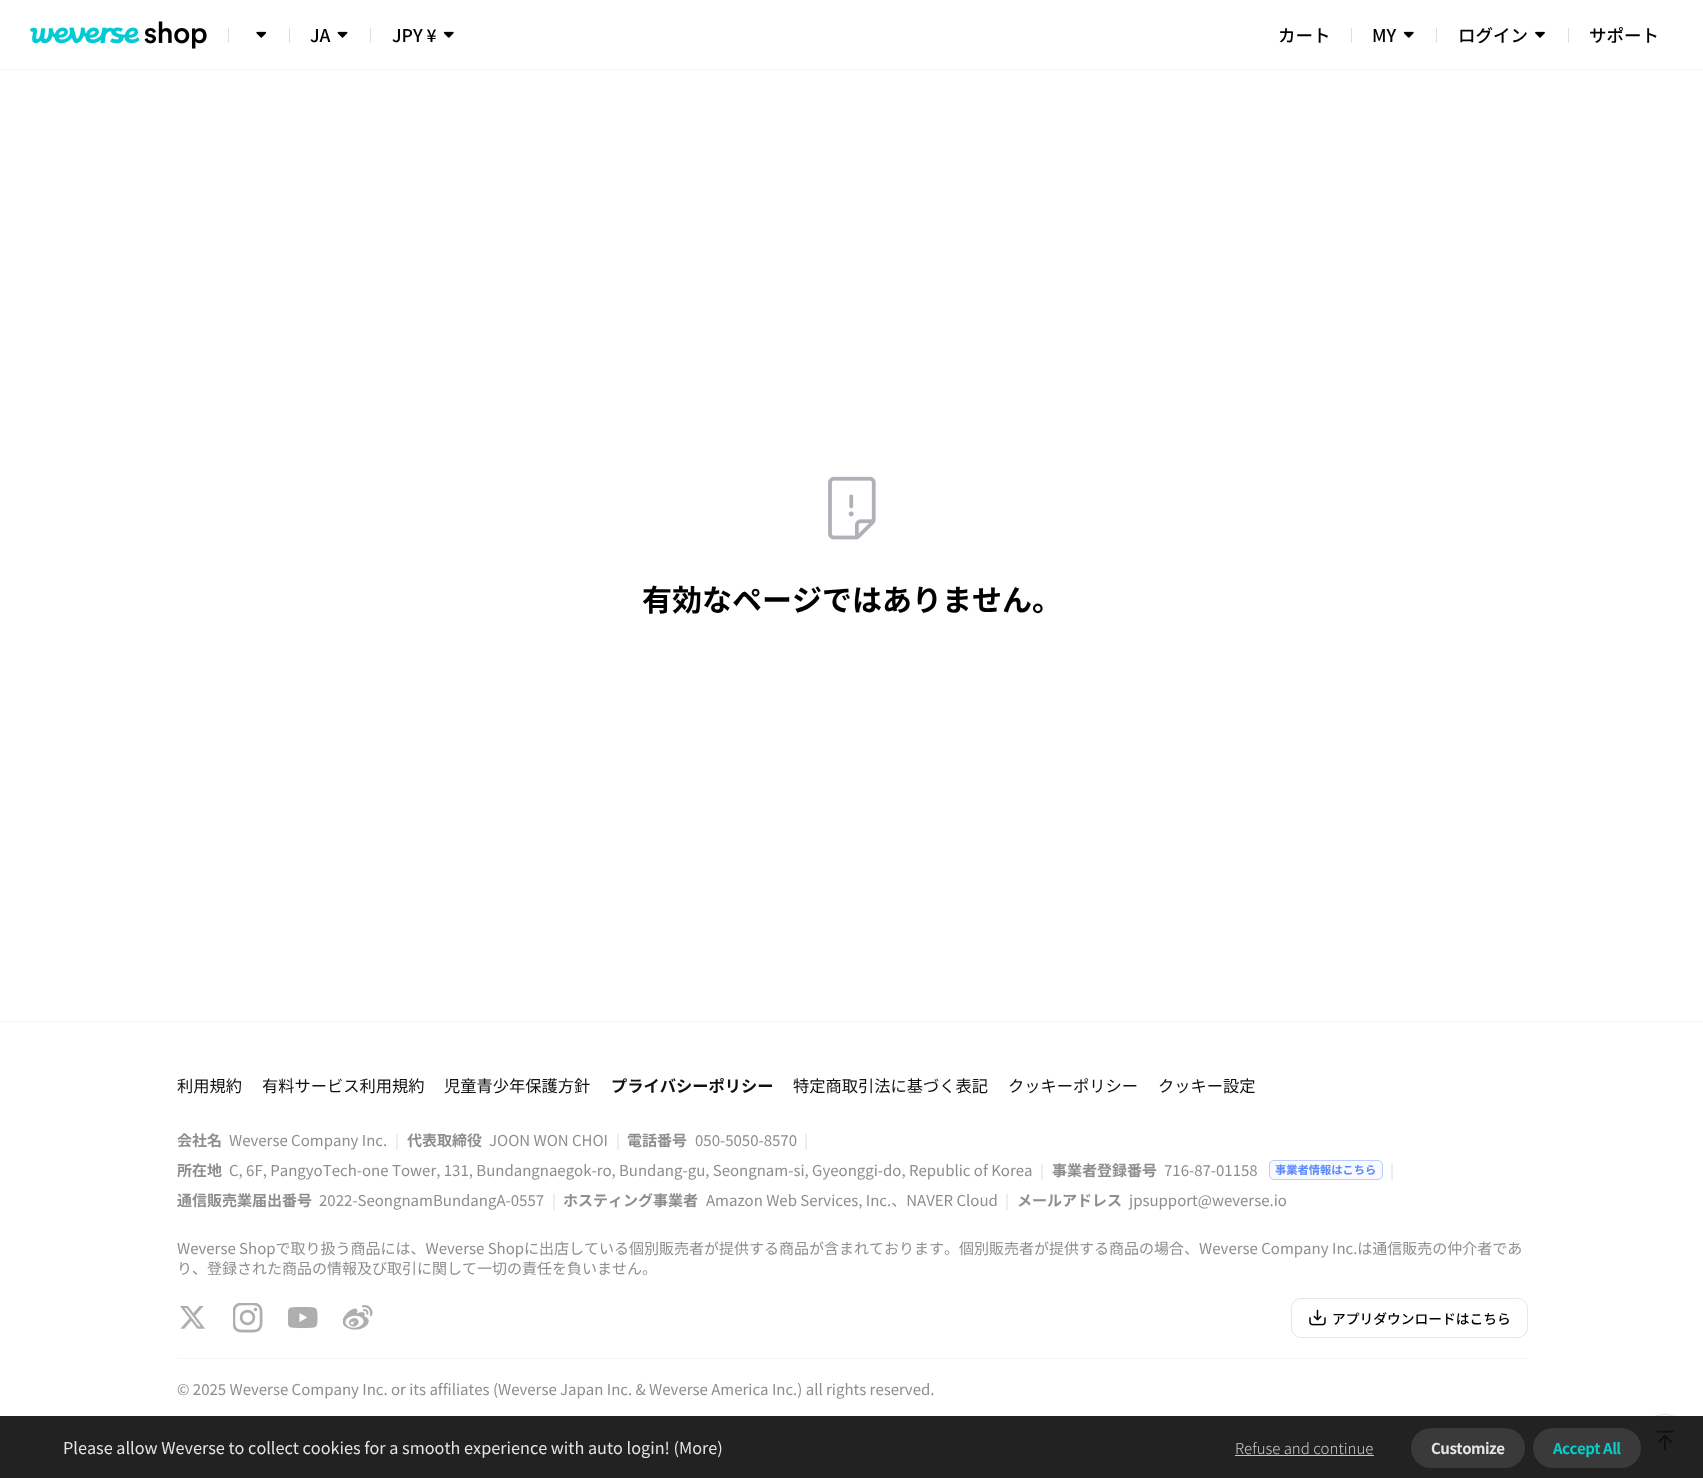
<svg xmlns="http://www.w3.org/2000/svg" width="1703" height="1478">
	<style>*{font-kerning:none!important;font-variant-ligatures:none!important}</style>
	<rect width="100%" height="100%" fill="#FFFFFF" />
	<rect x="0" y="69" width="1703" height="1" fill="#F5F5F5" />
	<image x="30" y="21" width="177" height="28" href="assets/img1.png" />
	<rect x="228" y="28" width="1" height="15" fill="#DCDEE4" />
	<image x="256" y="31" width="11" height="7" href="assets/img2.png" />
	<rect x="289" y="28" width="1" height="15" fill="#DCDEE4" />
	<text x="310" y="42" font-family="Noto Sans JP" font-size="17.5" font-weight="500" fill="#000000">JA</text>
	<image x="337" y="31" width="11" height="7" href="assets/img3.png" />
	<rect x="370" y="28" width="1" height="15" fill="#DCDEE4" />
	<text x="392" y="42" font-family="Noto Sans JP" font-size="17.5" font-weight="500" fill="#000000">JPY ¥</text>
	<image x="443" y="31" width="11" height="7" href="assets/img4.png" />
	<text x="1278" y="42" font-family="Noto Sans JP" font-size="17.5" font-weight="500" fill="#000000">カート</text>
	<rect x="1351" y="28" width="1" height="15" fill="#DCDEE4" />
	<text x="1372" y="42" font-family="Noto Sans JP" font-size="17.5" font-weight="500" fill="#000000">MY</text>
	<image x="1403" y="31" width="11" height="7" href="assets/img4.png" />
	<rect x="1436" y="28" width="1" height="15" fill="#DCDEE4" />
	<text x="1458" y="42" font-family="Noto Sans JP" font-size="17.5" font-weight="500" fill="#000000">ログイン</text>
	<image x="1535" y="31" width="10" height="7" href="assets/img5.png" />
	<rect x="1568" y="28" width="1" height="15" fill="#DCDEE4" />
	<text x="1589" y="42" font-family="Noto Sans JP" font-size="17.5" font-weight="500" fill="#000000">サポート</text>
	<image x="828" y="476" width="48" height="64" href="assets/img6.png" />
	<text x="642" y="611" font-family="Noto Sans JP" font-size="30" font-weight="700" fill="#000000">有効なページではありません。</text>
	<rect x="0" y="1021" width="1703" height="1" fill="#F5F5F5" />
	<g font-family="Noto Sans JP" font-size="16.25" fill="#111111">
		<text x="177" y="1092">利用規約</text>
		<text x="262" y="1092">有料サービス利用規約</text>
		<text x="444" y="1092">児童青少年保護方針</text>
	</g>
	<text x="611" y="1092" font-family="Noto Sans JP" font-size="16.25" font-weight="700" fill="#111111">プライバシーポリシー</text>
	<g font-family="Noto Sans JP" font-size="16.25" fill="#111111">
		<text x="793" y="1092">特定商取引法に基づく表記</text>
		<text x="1008" y="1092">クッキーポリシー</text>
		<text x="1158" y="1092">クッキー設定</text>
	</g>
	<text x="177" y="1146" font-family="Noto Sans JP" font-size="15" font-weight="700" fill="#8E8E8E">会社名</text>
	<text x="229" y="1146" font-family="Noto Sans JP" font-size="15" fill="#8E8E8E">Weverse Company Inc.</text>
	<text x="395" y="1146" font-family="Noto Sans JP" font-size="15" fill="#DCDEE4">|</text>
	<text x="407" y="1146" font-family="Noto Sans JP" font-size="15" font-weight="700" fill="#8E8E8E">代表取締役</text>
	<text x="489" y="1146" font-family="Noto Sans JP" font-size="15" fill="#8E8E8E">JOON WON CHOI</text>
	<text x="616" y="1146" font-family="Noto Sans JP" font-size="15" fill="#DCDEE4">|</text>
	<text x="627" y="1146" font-family="Noto Sans JP" font-size="15" font-weight="700" fill="#8E8E8E">電話番号</text>
	<text x="695" y="1146" font-family="Noto Sans JP" font-size="15" fill="#8E8E8E">050-5050-8570</text>
	<text x="804" y="1146" font-family="Noto Sans JP" font-size="15" fill="#DCDEE4">|</text>
	<text x="177" y="1176" font-family="Noto Sans JP" font-size="15" font-weight="700" fill="#8E8E8E">所在地</text>
	<text x="229" y="1176" font-family="Noto Sans JP" font-size="15" fill="#8E8E8E">C, 6F, PangyoTech-one</text>
	<text x="392" y="1176" font-family="Noto Sans JP" font-size="15" fill="#8E8E8E">Tower, 131, Bundangnaegok-ro,</text>
	<text x="619" y="1176" font-family="Noto Sans JP" font-size="15" fill="#8E8E8E">Bundang-gu, Seongnam-si, Gyeonggi-do, Republic of Korea</text>
	<text x="1040" y="1176" font-family="Noto Sans JP" font-size="15" fill="#DCDEE4">|</text>
	<text x="1052" y="1176" font-family="Noto Sans JP" font-size="15" font-weight="700" fill="#8E8E8E">事業者登録番号</text>
	<text x="1164" y="1176" font-family="Noto Sans JP" font-size="15" fill="#8E8E8E">716-87-01158</text>
	<rect x="1269" y="1160" width="114" height="20" rx="5" fill="#F8FAFF" />
	<rect x="1269.5" y="1160.5" width="113" height="19" rx="4.5" fill="none" stroke="#5989FE" stroke-opacity="0.4" />
	<text x="1275" y="1174" font-family="Noto Sans JP" font-size="11.25" font-weight="700" fill="#5989FE">事業者情報はこちら</text>
	<text x="1390" y="1176" font-family="Noto Sans JP" font-size="15" fill="#DCDEE4">|</text>
	<text x="177" y="1206" font-family="Noto Sans JP" font-size="15" font-weight="700" fill="#8E8E8E">通信販売業届出番号</text>
	<text x="319" y="1206" font-family="Noto Sans JP" font-size="15" fill="#8E8E8E">2022-SeongnamBundangA-0557</text>
	<text x="552" y="1206" font-family="Noto Sans JP" font-size="15" fill="#DCDEE4">|</text>
	<text x="563" y="1206" font-family="Noto Sans JP" font-size="15" font-weight="700" fill="#8E8E8E">ホスティング事業者</text>
	<text x="706" y="1206" font-family="Noto Sans JP" font-size="15" fill="#8E8E8E">Amazon Web Services, Inc.、NAVER Cloud</text>
	<text x="1005" y="1206" font-family="Noto Sans JP" font-size="15" fill="#DCDEE4">|</text>
	<text x="1017" y="1206" font-family="Noto Sans JP" font-size="15" font-weight="700" fill="#8E8E8E">メールアドレス</text>
	<g font-family="Noto Sans JP" font-size="15" fill="#8E8E8E">
		<text x="1129" y="1206">jpsupport@weverse.io</text>
		<text x="177" y="1254">Weverse Shopで取り扱う商品には、Weverse Shopに出店している個別販売者が提供する商品が含まれております。個別販売者が提供する商品の場合、Weverse Company</text>
		<text x="1332" y="1254">Inc.は通信販売の仲介者であ</text>
		<text x="177" y="1274">り、登録された商品の情報及び取引に関して一切の責任を負いません。</text>
	</g>
	<image x="180" y="1305" width="25" height="24" href="assets/img7.png" />
	<image x="233" y="1303" width="30" height="30" href="assets/img8.png" />
	<image x="288" y="1306" width="30" height="23" href="assets/img9.png" />
	<image x="343" y="1305" width="30" height="25" href="assets/img10.png" />
	<rect x="1291.5" y="1298.5" width="236" height="39" rx="9.5" fill="none" stroke="#E6E6E6" />
	<image x="1309" y="1309" width="17" height="17" href="assets/img11.png" />
	<text x="1332" y="1324" font-family="Noto Sans JP" font-size="13.75" font-weight="500" fill="#000000">アプリダウンロードはこちら</text>
	<rect x="178" y="1358" width="1350" height="1" fill="#F5F5F5" />
	<text x="177" y="1395" font-family="Noto Sans JP" font-size="15" fill="#8E8E8E">© 2025 Weverse Company Inc. or its affiliates (Weverse Japan Inc. &amp; Weverse America Inc.) all rights reserved.</text>
	<rect x="1639" y="1419" width="52" height="52" rx="26" fill="#000000" fill-opacity="0.06" filter="blur(5px)" />
	<circle cx="1665" cy="1440" r="26" fill="#FFFFFF" />
	<image x="1656" y="1430" width="18" height="21" href="assets/img12.png" />
	<circle cx="1665" cy="1440" r="25.5" fill="none" stroke="#E5E5E5" />
	<rect x="0" y="1416" width="1703" height="62" fill="#111111" fill-opacity="0.93" />
	<text x="63" y="1454" font-family="Noto Sans JP" font-size="16.25" fill="#E4E4E4">Please allow Weverse to collect cookies for a smooth experience with auto login! (More)</text>
	<text x="1235" y="1454" font-family="Noto Sans JP" font-size="15" font-weight="300" fill="#C8C8C8">Refuse and continue</text>
	<rect x="1235" y="1455" width="139" height="1" fill="#C8C8C8" />
	<rect x="1411" y="1428" width="114" height="40" rx="20" fill="#3A3A3A" />
	<text x="1431" y="1454" font-family="Noto Sans JP" font-size="15" font-weight="700" letter-spacing="-0.5" fill="#E4E4E4">Customize</text>
	<rect x="1533" y="1428" width="108" height="40" rx="20" fill="#3A3A3A" />
	<text x="1553" y="1454" font-family="Noto Sans JP" font-size="15" font-weight="700" letter-spacing="-0.5" fill="#08CCCA">Accept All</text>
</svg>
